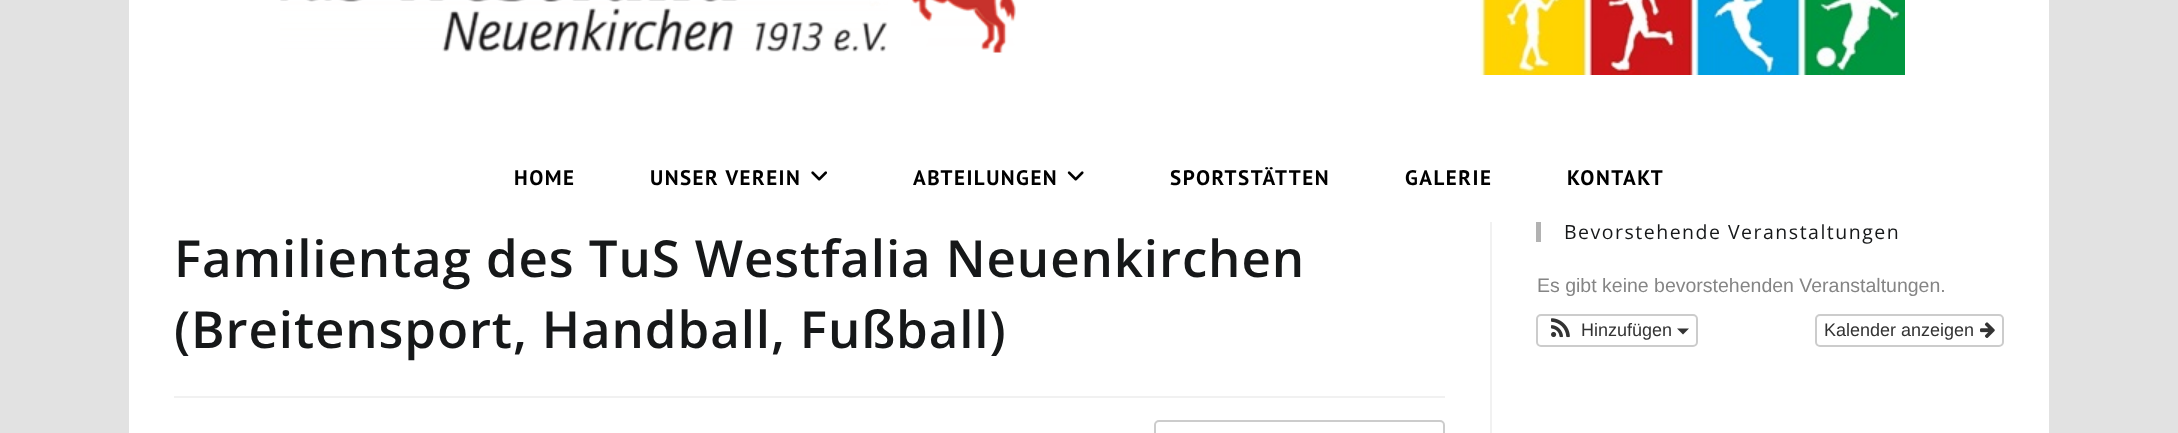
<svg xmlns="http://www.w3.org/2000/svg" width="2178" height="433">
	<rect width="100%" height="100%" fill="#E2E2E2" />
	<rect x="129" y="0" width="1920" height="433" fill="#FFFFFF" />
	<image x="280" y="0" width="608" height="52" href="assets/img1.png" />
	<image x="911" y="0" width="105" height="53" href="assets/img2.png" />
	<image x="1480" y="0" width="425" height="75" href="assets/img3.png" />
	<g font-family="PT Sans" font-size="21" font-weight="700" letter-spacing="1.5" fill="#000000">
		<text x="514" y="185">HOME</text>
		<text x="650" y="185">UNSER VEREIN</text>
	</g>
	<image x="811" y="171" width="16" height="10" href="assets/img4.png" />
	<text x="913" y="185" font-family="PT Sans" font-size="21" font-weight="700" letter-spacing="1.5" fill="#000000">ABTEILUNGEN</text>
	<image x="1067" y="171" width="17" height="10" href="assets/img5.png" />
	<g font-family="PT Sans" font-size="21" font-weight="700" letter-spacing="1.5" fill="#000000">
		<text x="1170" y="185">SPORTSTÄTTEN</text>
		<text x="1405" y="185">GALERIE</text>
		<text x="1567" y="185">KONTAKT</text>
	</g>
	<rect x="1490" y="222" width="2" height="211" fill="#F1F1F1" />
	<rect x="174" y="396" width="1271" height="2" fill="#F1F1F1" />
	<g font-family="Open Sans" font-size="51" font-weight="600" letter-spacing="0.9" fill="#161819">
		<text x="174" y="277">Familientag des TuS Westfalia Neuenkirchen</text>
		<text x="174" y="348">(Breitensport, Handball, Fußball)</text>
	</g>
	<rect x="1155" y="421" width="289" height="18" rx="4" fill="none" stroke="#CCCCCC" stroke-width="2" />
	<rect x="1536" y="222" width="5" height="20" fill="#B2B2B2" />
	<text x="1564" y="239" font-family="Open Sans" font-size="19.5" letter-spacing="1.5" fill="#161819">Bevorstehende Veranstaltungen</text>
	<text x="1537" y="292" font-family="Liberation Sans" font-size="19.5" fill="#858585">Es gibt keine bevorstehenden Veranstaltungen.</text>
	<rect x="1537" y="315" width="160" height="31" rx="4" fill="none" stroke="#CCCCCC" stroke-width="2" />
	<image x="1551" y="318" width="19" height="20" href="assets/img6.png" />
	<text x="1581" y="336" font-family="Liberation Sans" font-size="18" fill="#333333">Hinzufügen</text>
	<path d="M1677 328.5H1689L1683 334.5Z" fill="#333333" />
	<rect x="1816" y="315" width="187" height="31" rx="4" fill="none" stroke="#CCCCCC" stroke-width="2" />
	<text x="1824" y="336" font-family="Liberation Sans" font-size="18" fill="#333333">Kalender anzeigen</text>
	<image x="1980" y="322" width="15" height="16" href="assets/img7.png" />
</svg>
